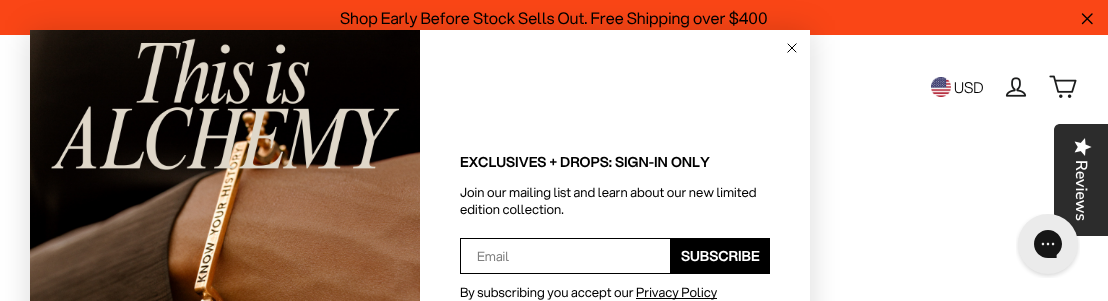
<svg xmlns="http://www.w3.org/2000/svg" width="1108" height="301">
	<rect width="100%" height="100%" fill="#FFFFFF" />
	<rect x="0" y="0" width="1108" height="35" fill="#FA4616" />
	<text x="340" y="24" font-family="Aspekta" font-size="16" fill="#000000">Shop Early Before Stock Sells Out. Free Shipping over $400</text>
	<path d="M1082.5 14L1092 23.5M1092 14L1082.5 23.5" fill="none" stroke="#000000" stroke-width="1.4" stroke-linecap="round" stroke-linejoin="round" />
	<image x="931" y="77" width="20" height="20" href="assets/img1.png" />
	<text x="954" y="93" font-family="Aspekta" font-size="15" font-weight="300" fill="#000000">USD</text>
	<image x="1005" y="77" width="22" height="20" href="assets/img2.png" />
	<image x="1049" y="75" width="28" height="23" href="assets/img3.png" />
	<rect x="30" y="30" width="780" height="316" fill="#000000" fill-opacity="0.15" filter="blur(15px)" />
	<rect x="420" y="30" width="390" height="271" fill="#FFFFFF" />
	<path d="M788 44L796 52M788 52L796 44Z" fill="none" stroke="#000000" stroke-linecap="round" stroke-linejoin="round" />
	<image x="30" y="30" width="390" height="271" href="assets/img4.png" />
	<text x="460" y="167" font-family="Aspekta" font-size="14" font-weight="600" fill="#000000">EXCLUSIVES + DROPS: SIGN-IN ONLY</text>
	<g font-family="Aspekta" font-size="13" fill="#000000">
		<text x="460" y="197">Join our mailing list and learn about our new limited</text>
		<text x="460" y="214">edition collection.</text>
	</g>
	<rect x="460.5" y="238.5" width="210" height="35" fill="none" stroke="#000000" />
	<text x="477" y="261" font-family="Aspekta" font-size="13" fill="#808080">Email</text>
	<rect x="671" y="238" width="99" height="36" fill="#000000" />
	<text x="681" y="261" font-family="Aspekta" font-size="14" font-weight="600" fill="#FFFFFF">SUBSCRIBE</text>
	<text x="460" y="297" font-family="Aspekta" font-size="13" fill="#000000">By subscribing you accept our</text>
	<rect x="636" y="298" width="81" height="1" fill="#000000" />
	<text x="636" y="297" font-family="Aspekta" font-size="13" fill="#000000">Privacy Policy</text>
	<path d="M1108 124V236H1060C1057 236 1054 234 1054 230V130C1054 126 1057 124 1060 124Z" fill="#2C2C2C" />
	<image x="1074" y="138" width="18" height="18" href="assets/img5.png" />
	<text x="1076" y="160" transform="rotate(90 1076 160)" font-family="Nunito Sans" font-size="16" font-weight="600" fill="#FFFFFF">Reviews</text>
	<image x="1016" y="214" width="64" height="64" href="assets/img6.png" />
</svg>
